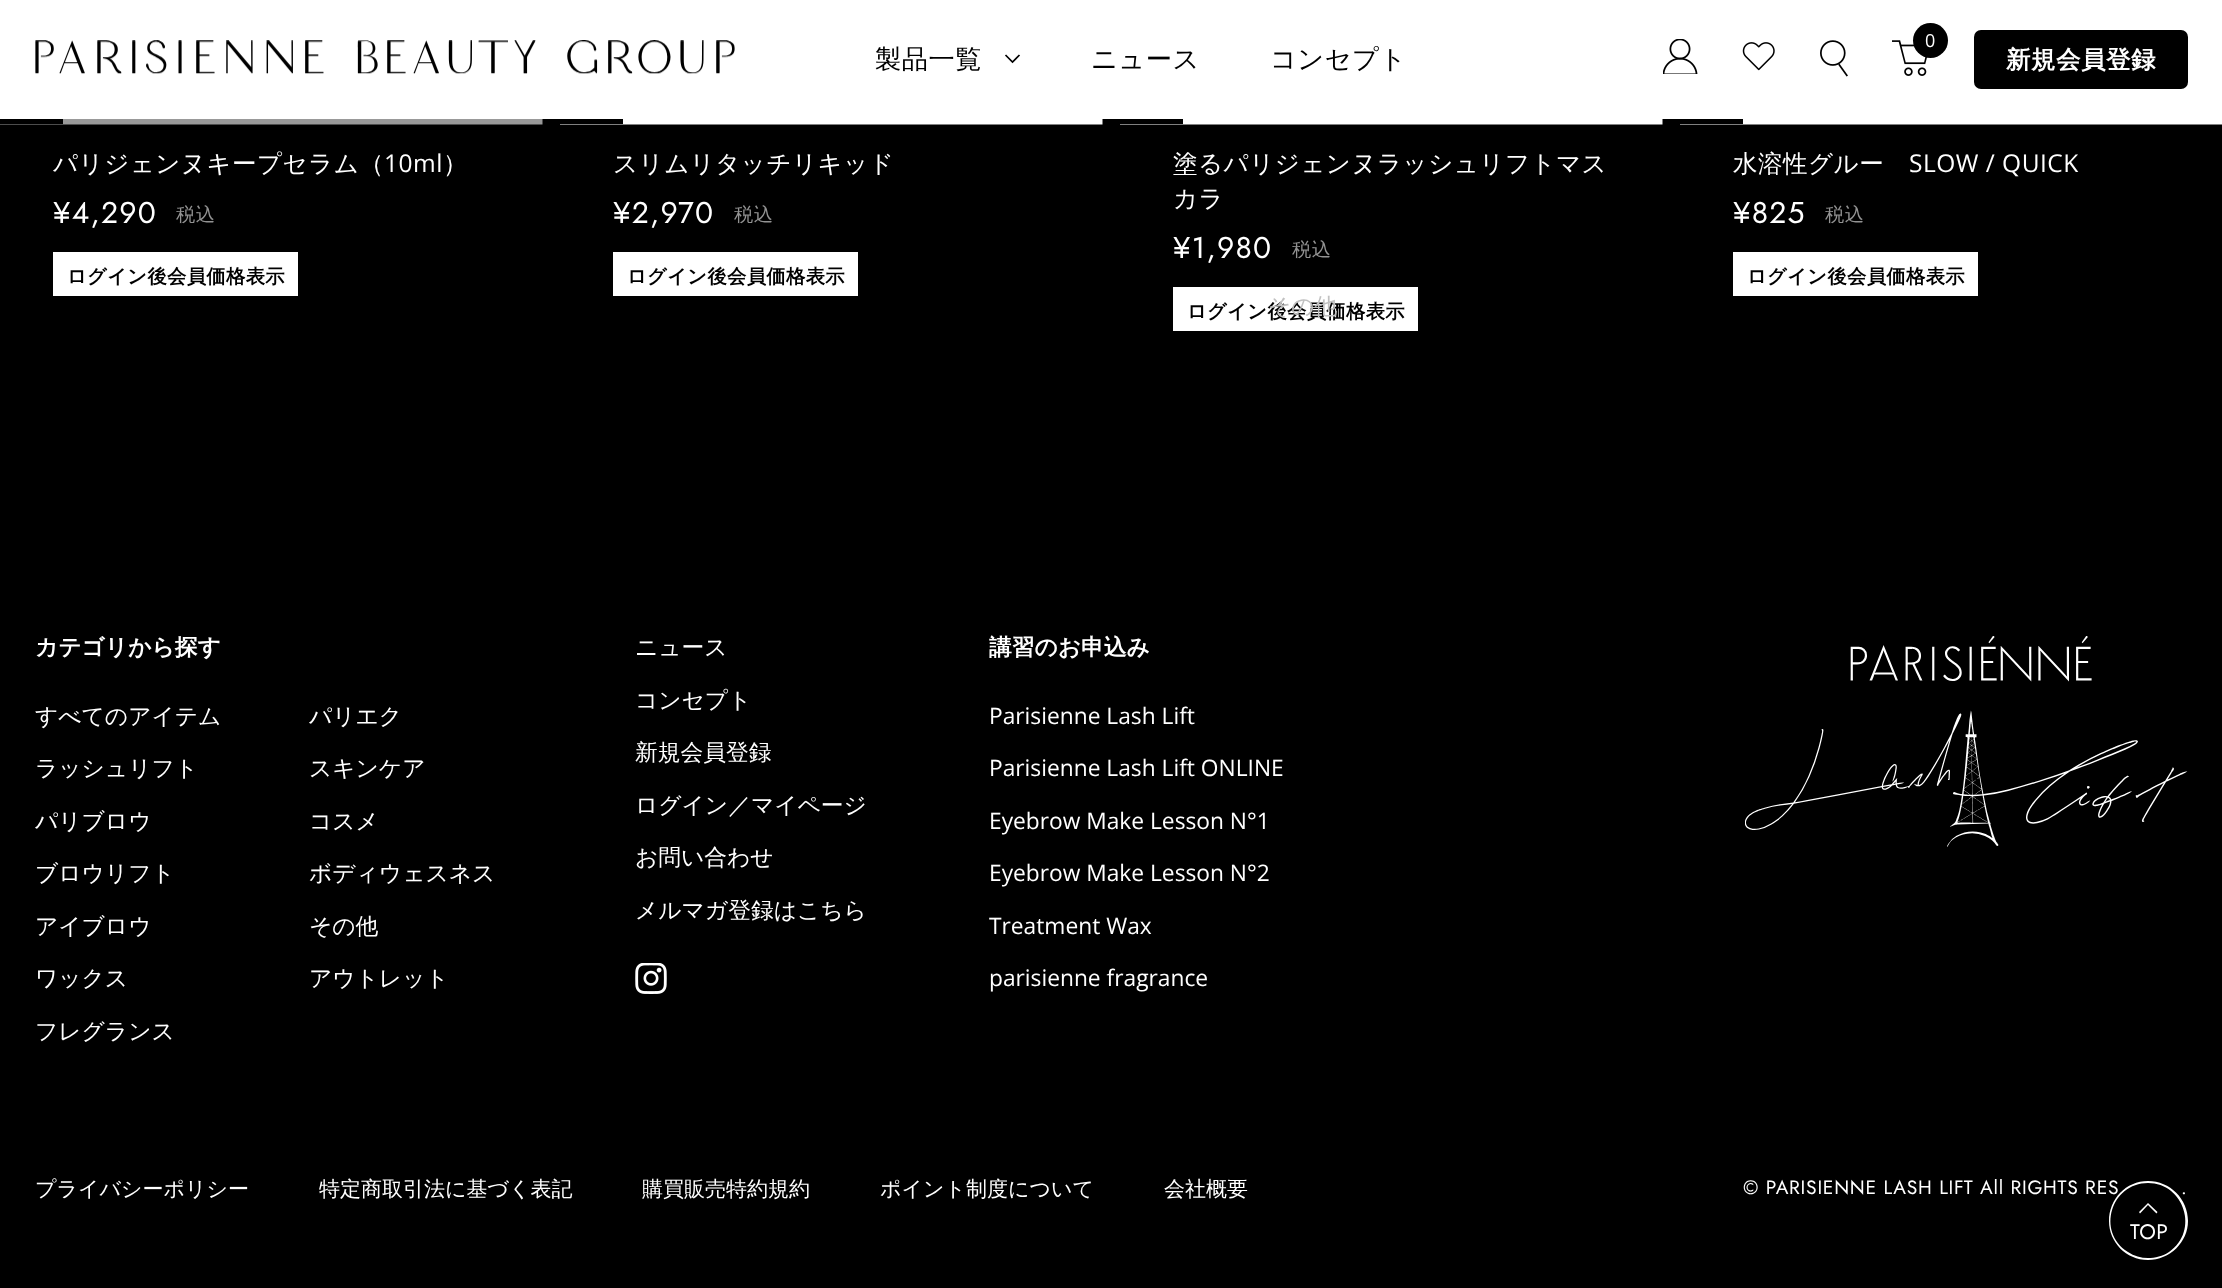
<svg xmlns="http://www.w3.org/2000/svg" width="2222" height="1288">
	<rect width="100%" height="100%" fill="#000000" />
	<rect x="0" y="0" width="2222" height="119" fill="#FFFFFF" />
	<image x="35" y="40" width="700" height="34" href="assets/img1.png" />
	<g font-family="WenQuanYi Zen Hei" font-size="26.25" font-weight="500" letter-spacing="0.5" fill="#000000">
		<text x="1270" y="68">コンセプト</text>
		<text x="875" y="68">製品一覧</text>
	</g>
	<path d="M1005.5 55L1012.5 62L1019.5 55" fill="none" stroke="#000000" stroke-width="1.7" />
	<rect x="1173" y="287" width="245" height="44" fill="#FFFFFF" />
	<text x="1187" y="318" font-family="WenQuanYi Zen Hei" font-size="19.25" font-weight="700" letter-spacing="0.4" fill="#000000">ログイン後会員価格表示</text>
	<text x="1268" y="314" font-family="WenQuanYi Zen Hei" font-size="22.75" font-weight="500" fill="#C1C1C1">その他</text>
	<text x="1091" y="68" font-family="WenQuanYi Zen Hei" font-size="26.25" font-weight="500" letter-spacing="0.5" fill="#000000">ニュース</text>
	<image x="1663" y="39" width="35" height="35" href="assets/img2.png" />
	<image x="1742" y="42" width="33" height="29" href="assets/img3.png" />
	<image x="1820" y="40" width="28" height="37" href="assets/img4.png" />
	<image x="1892" y="40" width="35" height="36" href="assets/img5.png" />
	<circle cx="1930.5" cy="40.5" r="17.5" fill="#000000" />
	<text x="1925" y="47" font-family="Open Sans" font-size="18" fill="#FFFFFF">0</text>
	<rect x="1974" y="30" width="214" height="59" rx="7" fill="#000000" />
	<text x="2006" y="68" font-family="WenQuanYi Zen Hei" font-size="24.5" font-weight="700" letter-spacing="0.5" fill="#FFFFFF">新規会員登録</text>
	<image x="0" y="119" width="543" height="6" href="assets/img6.png" />
	<rect x="0" y="119" width="63" height="5" fill="#000000" />
	<text x="53" y="172" font-family="WenQuanYi Zen Hei" font-size="24.5" font-weight="500" letter-spacing="0.5" fill="#FFFFFF">パリジェンヌキープセラム（</text>
	<text x="384" y="172" font-family="Open Sans" font-size="24.5" letter-spacing="0.5" fill="#FFFFFF">10ml</text>
	<text x="443" y="172" font-family="WenQuanYi Zen Hei" font-size="24.5" font-weight="500" letter-spacing="0.5" fill="#FFFFFF">）</text>
	<text x="53" y="223" font-family="Jost" font-size="30" letter-spacing="1.25" fill="#FFFFFF">¥4,290</text>
	<text x="176" y="221" font-family="WenQuanYi Zen Hei" font-size="19.25" font-weight="500" letter-spacing="0.4" fill="#929292">税込</text>
	<rect x="53" y="252" width="245" height="44" fill="#FFFFFF" />
	<text x="67" y="283" font-family="WenQuanYi Zen Hei" font-size="19.25" font-weight="700" letter-spacing="0.4" fill="#000000">ログイン後会員価格表示</text>
	<image x="560" y="119" width="543" height="6" href="assets/img7.png" />
	<rect x="560" y="119" width="63" height="5" fill="#000000" />
	<text x="613" y="172" font-family="WenQuanYi Zen Hei" font-size="24.5" font-weight="500" letter-spacing="0.5" fill="#FFFFFF">スリムリタッチリキッド</text>
	<text x="613" y="223" font-family="Jost" font-size="30" letter-spacing="1.25" fill="#FFFFFF">¥2,970</text>
	<text x="734" y="221" font-family="WenQuanYi Zen Hei" font-size="19.25" font-weight="500" letter-spacing="0.4" fill="#929292">税込</text>
	<rect x="613" y="252" width="245" height="44" fill="#FFFFFF" />
	<text x="627" y="283" font-family="WenQuanYi Zen Hei" font-size="19.25" font-weight="700" letter-spacing="0.4" fill="#000000">ログイン後会員価格表示</text>
	<image x="1120" y="119" width="543" height="6" href="assets/img7.png" />
	<rect x="1120" y="119" width="63" height="5" fill="#000000" />
	<g font-family="WenQuanYi Zen Hei" font-size="24.5" font-weight="500" letter-spacing="0.5" fill="#FFFFFF">
		<text x="1173" y="172">塗るパリジェンヌラッシュリフトマス</text>
		<text x="1173" y="207">カラ</text>
	</g>
	<text x="1173" y="258" font-family="Jost" font-size="30" letter-spacing="1.25" fill="#FFFFFF">¥1,980</text>
	<text x="1292" y="256" font-family="WenQuanYi Zen Hei" font-size="19.25" font-weight="500" letter-spacing="0.4" fill="#929292">税込</text>
	<image x="1680" y="119" width="542" height="6" href="assets/img8.png" />
	<rect x="1680" y="119" width="63" height="5" fill="#000000" />
	<text x="1733" y="172" font-family="WenQuanYi Zen Hei" font-size="24.5" font-weight="500" letter-spacing="0.5" fill="#FFFFFF">水溶性グルー</text>
	<text x="1909" y="172" font-family="Open Sans" font-size="24.5" letter-spacing="0.5" fill="#FFFFFF">SLOW / QUICK</text>
	<text x="1733" y="223" font-family="Jost" font-size="30" letter-spacing="1.25" fill="#FFFFFF">¥825</text>
	<text x="1825" y="221" font-family="WenQuanYi Zen Hei" font-size="19.25" font-weight="500" letter-spacing="0.4" fill="#929292">税込</text>
	<rect x="1733" y="252" width="245" height="44" fill="#FFFFFF" />
	<text x="1747" y="283" font-family="WenQuanYi Zen Hei" font-size="19.25" font-weight="700" letter-spacing="0.4" fill="#000000">ログイン後会員価格表示</text>
	<text x="35" y="655" font-family="WenQuanYi Zen Hei" font-size="22.75" font-weight="700" fill="#FFFFFF">カテゴリから探す</text>
	<g font-family="WenQuanYi Zen Hei" font-size="22.75" font-weight="500" fill="#FFFFFF">
		<text x="35" y="724">すべてのアイテム</text>
		<text x="35" y="776">ラッシュリフト</text>
		<text x="35" y="829">パリブロウ</text>
		<text x="35" y="881">ブロウリフト</text>
		<text x="35" y="934">アイブロウ</text>
		<text x="35" y="986">ワックス</text>
		<text x="35" y="1039">フレグランス</text>
		<text x="309" y="724">パリエク</text>
		<text x="309" y="776">スキンケア</text>
		<text x="309" y="829">コスメ</text>
		<text x="309" y="881">ボディウェスネス</text>
		<text x="309" y="934">その他</text>
		<text x="309" y="986">アウトレット</text>
		<text x="635" y="655">ニュース</text>
		<text x="635" y="708">コンセプト</text>
		<text x="635" y="760">新規会員登録</text>
		<text x="635" y="813">ログイン／マイページ</text>
		<text x="635" y="865">お問い合わせ</text>
		<text x="635" y="918">メルマガ登録はこちら</text>
	</g>
	<image x="635" y="963" width="32" height="31" href="assets/img9.png" />
	<text x="989" y="655" font-family="WenQuanYi Zen Hei" font-size="22.75" font-weight="700" fill="#FFFFFF">講習のお申込み</text>
	<g font-family="Open Sans" font-size="22.75" fill="#FFFFFF">
		<text x="989" y="724">Parisienne Lash Lift</text>
		<text x="989" y="776">Parisienne Lash Lift ONLINE</text>
		<text x="989" y="829">Eyebrow Make Lesson N°1</text>
		<text x="989" y="881">Eyebrow Make Lesson N°2</text>
		<text x="989" y="934">Treatment Wax</text>
		<text x="989" y="986">parisienne fragrance</text>
	</g>
	<image x="1745" y="636" width="443" height="211" href="assets/img10.png" />
	<g font-family="WenQuanYi Zen Hei" font-size="21" font-weight="500" fill="#FFFFFF">
		<text x="35" y="1196">プライバシーポリシー</text>
		<text x="319" y="1196">特定商取引法に基づく表記</text>
		<text x="642" y="1196">購買販売特約規約</text>
		<text x="880" y="1196">ポイント制度について</text>
		<text x="1164" y="1196">会社概要</text>
	</g>
	<g font-family="Jost" font-size="19.25" letter-spacing="0.75" fill="#FFFFFF">
		<text x="1743" y="1194">© PARISIENNE LASH LIFT All RIGHTS RES</text>
		<text x="2181" y="1194">.</text>
	</g>
	<path d="M2148 1183C2111 1183 2096 1232 2128 1252C2134 1256 2141 1258 2148 1258C2155 1258 2163 1256 2169 1252C2200 1231 2184 1183 2148 1183M2148 1181C2170 1181 2188 1199 2188 1221C2188 1242 2170 1260 2148 1260C2126 1260 2109 1242 2109 1221C2109 1199 2126 1181 2148 1181Z" fill="#FFFFFF" />
	<text x="2130" y="1239" font-family="Jost" font-size="21" letter-spacing="0.5" fill="#FFFFFF">TOP</text>
	<path d="M2157.5 1212L2156.5 1213.5L2148 1205L2140 1213.5L2139 1212L2148 1203Z" fill="#FFFFFF" />
</svg>
